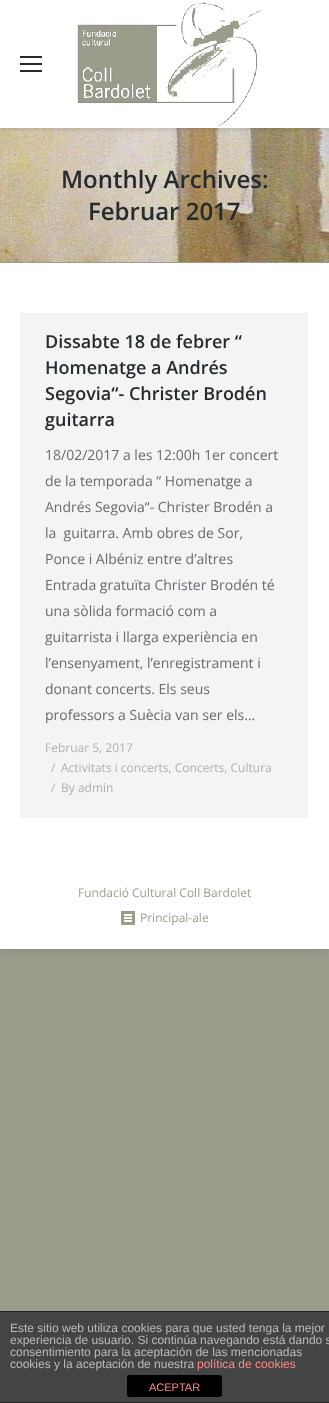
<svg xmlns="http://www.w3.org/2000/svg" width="329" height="1403">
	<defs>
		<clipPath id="clip1"><rect x="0" y="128" width="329" height="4" /></clipPath>
	</defs>
	<rect width="100%" height="100%" fill="#9C9C8D" />
	<rect x="0" y="0" width="329" height="949" fill="#000000" fill-opacity="0.15" filter="blur(6px)" />
	<rect x="0" y="0" width="329" height="949" fill="#FFFFFF" />
	<image x="0" y="128" width="329" height="134" href="assets/img2.png" />
	<g clip-path="url(#clip1)">
		<rect x="0" y="0" width="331" height="130" fill="#000000" fill-opacity="0.1" filter="blur(2px)" />
	</g>
	<rect x="20" y="63" width="22" height="2" fill="#262B2E" />
	<rect x="20" y="56" width="22" height="2" fill="#262B2E" />
	<rect x="20" y="70" width="22" height="2" fill="#262B2E" />
	<image x="77" y="2" width="185" height="125" href="assets/img1.png" />
	<rect x="0" y="262" width="329" height="1" fill="#9C9C8D" />
	<g font-family="Open Sans" font-size="24" font-weight="600" fill="#262B2E">
		<text x="61" y="188">Monthly Archives:</text>
		<text x="88" y="220">Februar 2017</text>
	</g>
	<rect x="20" y="313" width="288" height="505" fill="#F4F4F4" />
	<g font-family="Open Sans" font-size="18" font-weight="600" fill="#262B2E">
		<text x="45" y="348">Dissabte 18 de febrer “</text>
		<text x="45" y="374">Homenatge a Andrés</text>
		<text x="45" y="400">Segovia“- Christer Brodén</text>
		<text x="45" y="426">guitarra</text>
	</g>
	<g font-family="Open Sans" font-size="14" fill="#676B6D">
		<text x="45" y="460">18/02/2017 a les 12:00h 1er concert</text>
		<text x="45" y="486">de la temporada “ Homenatge a</text>
		<text x="45" y="512">Andrés Segovia“- Christer Brodén a</text>
		<text x="45" y="538" xml:space="preserve">la  guitarra. Amb obres de Sor,</text>
		<text x="45" y="564">Ponce i Albéniz entre d’altres</text>
		<text x="45" y="590">Entrada gratuïta Christer Brodén té</text>
		<text x="45" y="616">una sòlida formació com a</text>
		<text x="45" y="642">guitarrista i llarga experiència en</text>
		<text x="45" y="668">l’ensenyament, l’enregistrament i</text>
		<text x="45" y="694">donant concerts. Els seus</text>
		<text x="45" y="720">professors a Suècia van ser els…</text>
	</g>
	<g font-family="Open Sans" font-size="12" fill="#AEB0B1">
		<text x="45" y="752">Februar 5, 2017</text>
		<text x="51" y="772">/</text>
		<text x="61" y="772">Activitats i concerts, Concerts, Cultura</text>
		<text x="51" y="792">/</text>
		<text x="61" y="792">By admin</text>
	</g>
	<text x="78" y="897" font-family="Open Sans" font-size="12" fill="#9C9C8D">Fundació Cultural Coll Bardolet</text>
	<image x="121" y="911" width="14" height="14" href="assets/img3.png" />
	<text x="140" y="922" font-family="Open Sans" font-size="12" fill="#9C9C8D">Principal-ale</text>
	<rect x="0" y="1312" width="329" height="90" fill="#444444" />
	<rect x="0" y="1311" width="329" height="1" fill="#222222" />
	<rect x="0" y="1402" width="329" height="1" fill="#222222" />
	<g font-family="Liberation Sans" font-size="12" fill="#BBBBBB">
		<text x="10" y="1332">Este sitio web utiliza cookies para que usted tenga la mejor</text>
		<text x="10" y="1344">experiencia de usuario. Si continúa navegando está dando s</text>
		<text x="10" y="1356">consentimiento para la aceptación de las mencionadas</text>
		<text x="10" y="1368">cookies y la aceptación de nuestra</text>
	</g>
	<text x="197" y="1368" font-family="Liberation Sans" font-size="12" fill="#FF8888">política de cookies</text>
	<rect x="127" y="1375" width="95" height="22" rx="3" fill="#000000" />
	<text x="149" y="1391" font-family="Liberation Sans" font-size="11" fill="#FF8888">ACEPTAR</text>
</svg>
